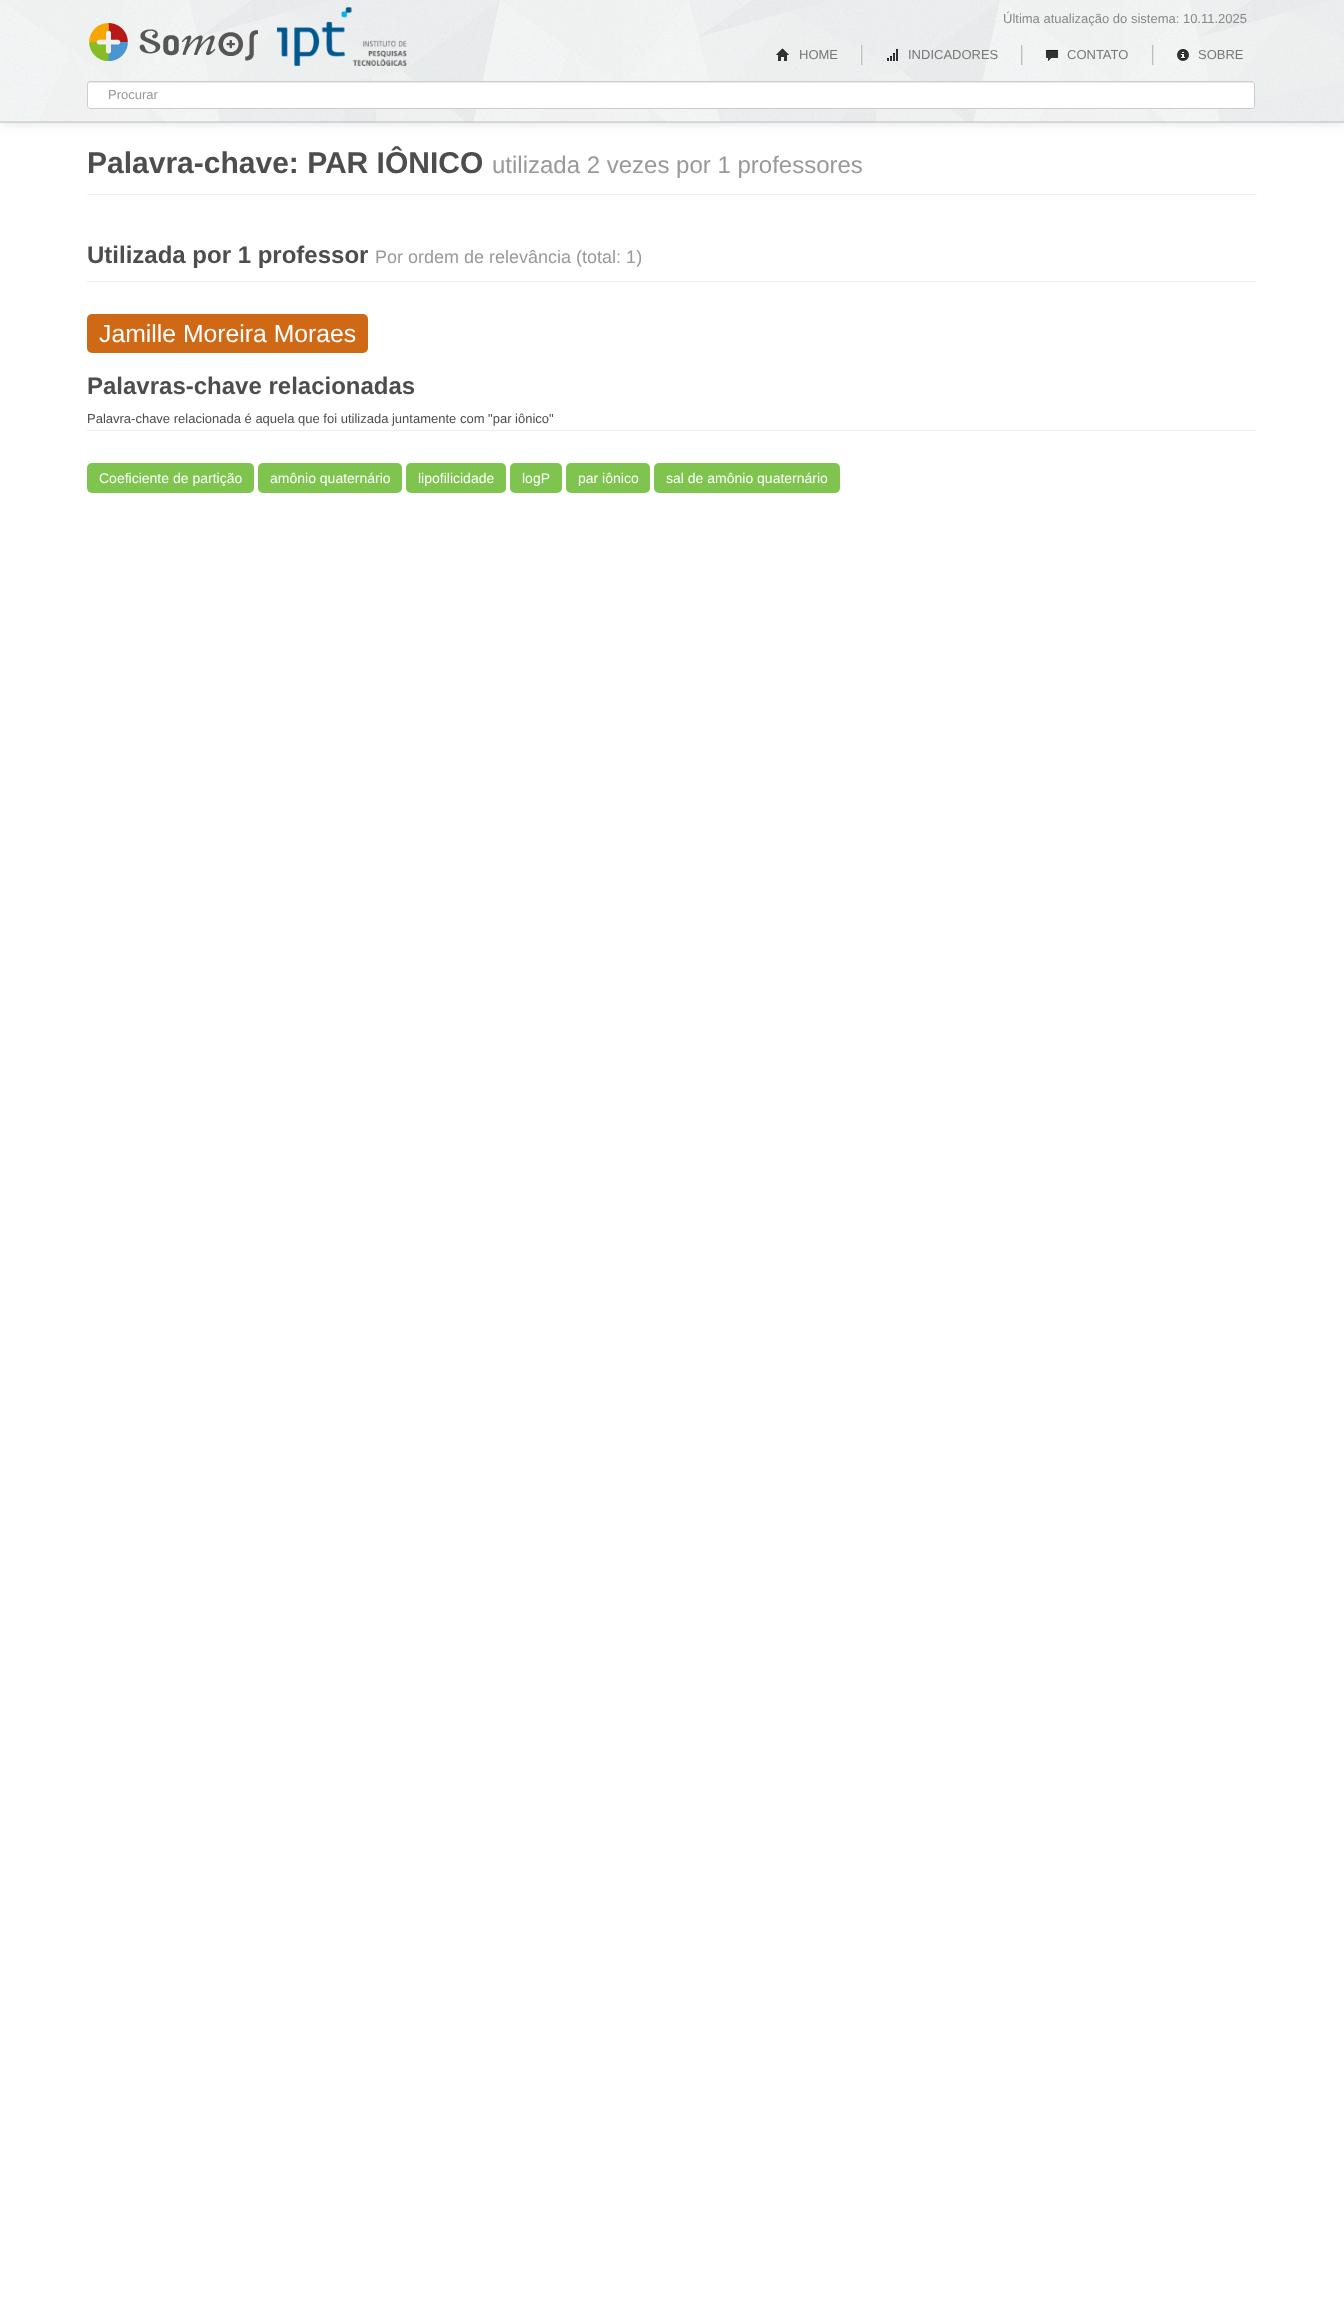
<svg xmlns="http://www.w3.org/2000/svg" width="1344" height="2314">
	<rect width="100%" height="100%" fill="#FFFFFF" />
	<rect x="0" y="1" width="1344" height="123" fill="#000000" fill-opacity="0.1" filter="blur(5px)" />
	<image x="0" y="0" width="1344" height="122" href="assets/img1.png" />
	<rect x="0" y="121" width="1344" height="1" fill="#000000" fill-opacity="0.1" />
	<rect x="0" y="122" width="1344" height="1" fill="#D4D4D4" />
	<image x="277" y="7" width="130" height="59" href="assets/img2.png" />
	<text x="1003" y="23" font-family="Liberation Sans" font-size="13" fill="#888888">Última atualização do sistema: 10.11.2025</text>
	<image x="89" y="23" width="169" height="38" href="assets/img3.png" />
	<image x="776" y="48" width="13" height="14" href="assets/img4.png" />
	<text x="799" y="59" font-family="Liberation Sans" font-size="13" fill="#777777">HOME</text>
	<rect x="861" y="45" width="1" height="20" fill="#BFBFBF" />
	<rect x="862" y="45" width="1" height="20" fill="#DFDFDF" />
	<rect x="860" y="45" width="1" height="20" fill="#F2F2F2" />
	<image x="887" y="49" width="11" height="13" href="assets/img5.png" />
	<text x="908" y="59" font-family="Liberation Sans" font-size="13" fill="#777777">INDICADORES</text>
	<rect x="1021" y="45" width="1" height="20" fill="#BFBFBF" />
	<rect x="1022" y="45" width="1" height="20" fill="#DFDFDF" />
	<rect x="1020" y="45" width="1" height="20" fill="#F2F2F2" />
	<image x="1046" y="50" width="12" height="11" href="assets/img6.png" />
	<text x="1067" y="59" font-family="Liberation Sans" font-size="13" fill="#777777">CONTATO</text>
	<rect x="1152" y="45" width="1" height="20" fill="#BFBFBF" />
	<rect x="1153" y="45" width="1" height="20" fill="#DFDFDF" />
	<rect x="1151" y="45" width="1" height="20" fill="#F2F2F2" />
	<image x="1177" y="49" width="12" height="12" href="assets/img7.png" />
	<text x="1198" y="59" font-family="Liberation Sans" font-size="13" fill="#777777">SOBRE</text>
	<rect x="87" y="81" width="1168" height="28" rx="3" fill="#FFFFFF" />
	<path d="M90 83H1252C1253 83 1254 84 1254 85V83L1252 82H90C89 82 88 83 88 84V85C88 84 89 83 90 83Z" fill="#ECECEC" />
	<rect x="87.5" y="81.5" width="1167" height="27" rx="2.5" fill="none" stroke="#CCCCCC" />
	<text x="108" y="99" font-family="Liberation Sans" font-size="13" fill="#999999">Procurar</text>
	<rect x="87" y="194" width="1170" height="1" fill="#EEEEEE" />
	<text x="87" y="173" font-family="Liberation Sans" font-size="30" font-weight="700" fill="#4D4D4D">Palavra-chave: PAR IÔNICO</text>
	<text x="492" y="173" font-family="Liberation Sans" font-size="24" fill="#999999">utilizada 2 vezes por 1 professores</text>
	<rect x="87" y="281" width="1170" height="1" fill="#EEEEEE" />
	<text x="87" y="263" font-family="Liberation Sans" font-size="24" font-weight="700" fill="#4D4D4D">Utilizada por 1 professor</text>
	<text x="375" y="263" font-family="Liberation Sans" font-size="18" fill="#999999">Por ordem de relevância (total: 1)</text>
	<rect x="87" y="314" width="281" height="39" rx="5" fill="#D06916" />
	<text x="99" y="342" font-family="Liberation Sans" font-size="24.75" fill="#FFFFFF">Jamille Moreira Moraes</text>
	<rect x="87" y="430" width="1170" height="1" fill="#EEEEEE" />
	<text x="87" y="394" font-family="Liberation Sans" font-size="24" font-weight="700" fill="#4D4D4D">Palavras-chave relacionadas</text>
	<text x="87" y="423" font-family="Liberation Sans" font-size="13" fill="#4D4D4D">Palavra-chave relacionada é aquela que foi utilizada juntamente com "par iônico"</text>
	<rect x="87" y="463" width="167" height="30" rx="5" fill="#7EC44E" />
	<text x="99" y="483" font-family="Liberation Sans" font-size="14" fill="#FFFFFF">Coeficiente de partição</text>
	<rect x="258" y="463" width="144" height="30" rx="5" fill="#7EC44E" />
	<text x="270" y="483" font-family="Liberation Sans" font-size="14" fill="#FFFFFF">amônio quaternário</text>
	<rect x="406" y="463" width="100" height="30" rx="5" fill="#7EC44E" />
	<text x="418" y="483" font-family="Liberation Sans" font-size="14" fill="#FFFFFF">lipofilicidade</text>
	<rect x="510" y="463" width="52" height="30" rx="5" fill="#7EC44E" />
	<text x="522" y="483" font-family="Liberation Sans" font-size="14" fill="#FFFFFF">logP</text>
	<rect x="566" y="463" width="84" height="30" rx="5" fill="#7EC44E" />
	<text x="578" y="483" font-family="Liberation Sans" font-size="14" fill="#FFFFFF">par iônico</text>
	<rect x="654" y="463" width="186" height="30" rx="5" fill="#7EC44E" />
	<text x="666" y="483" font-family="Liberation Sans" font-size="14" fill="#FFFFFF">sal de amônio quaternário</text>
</svg>
